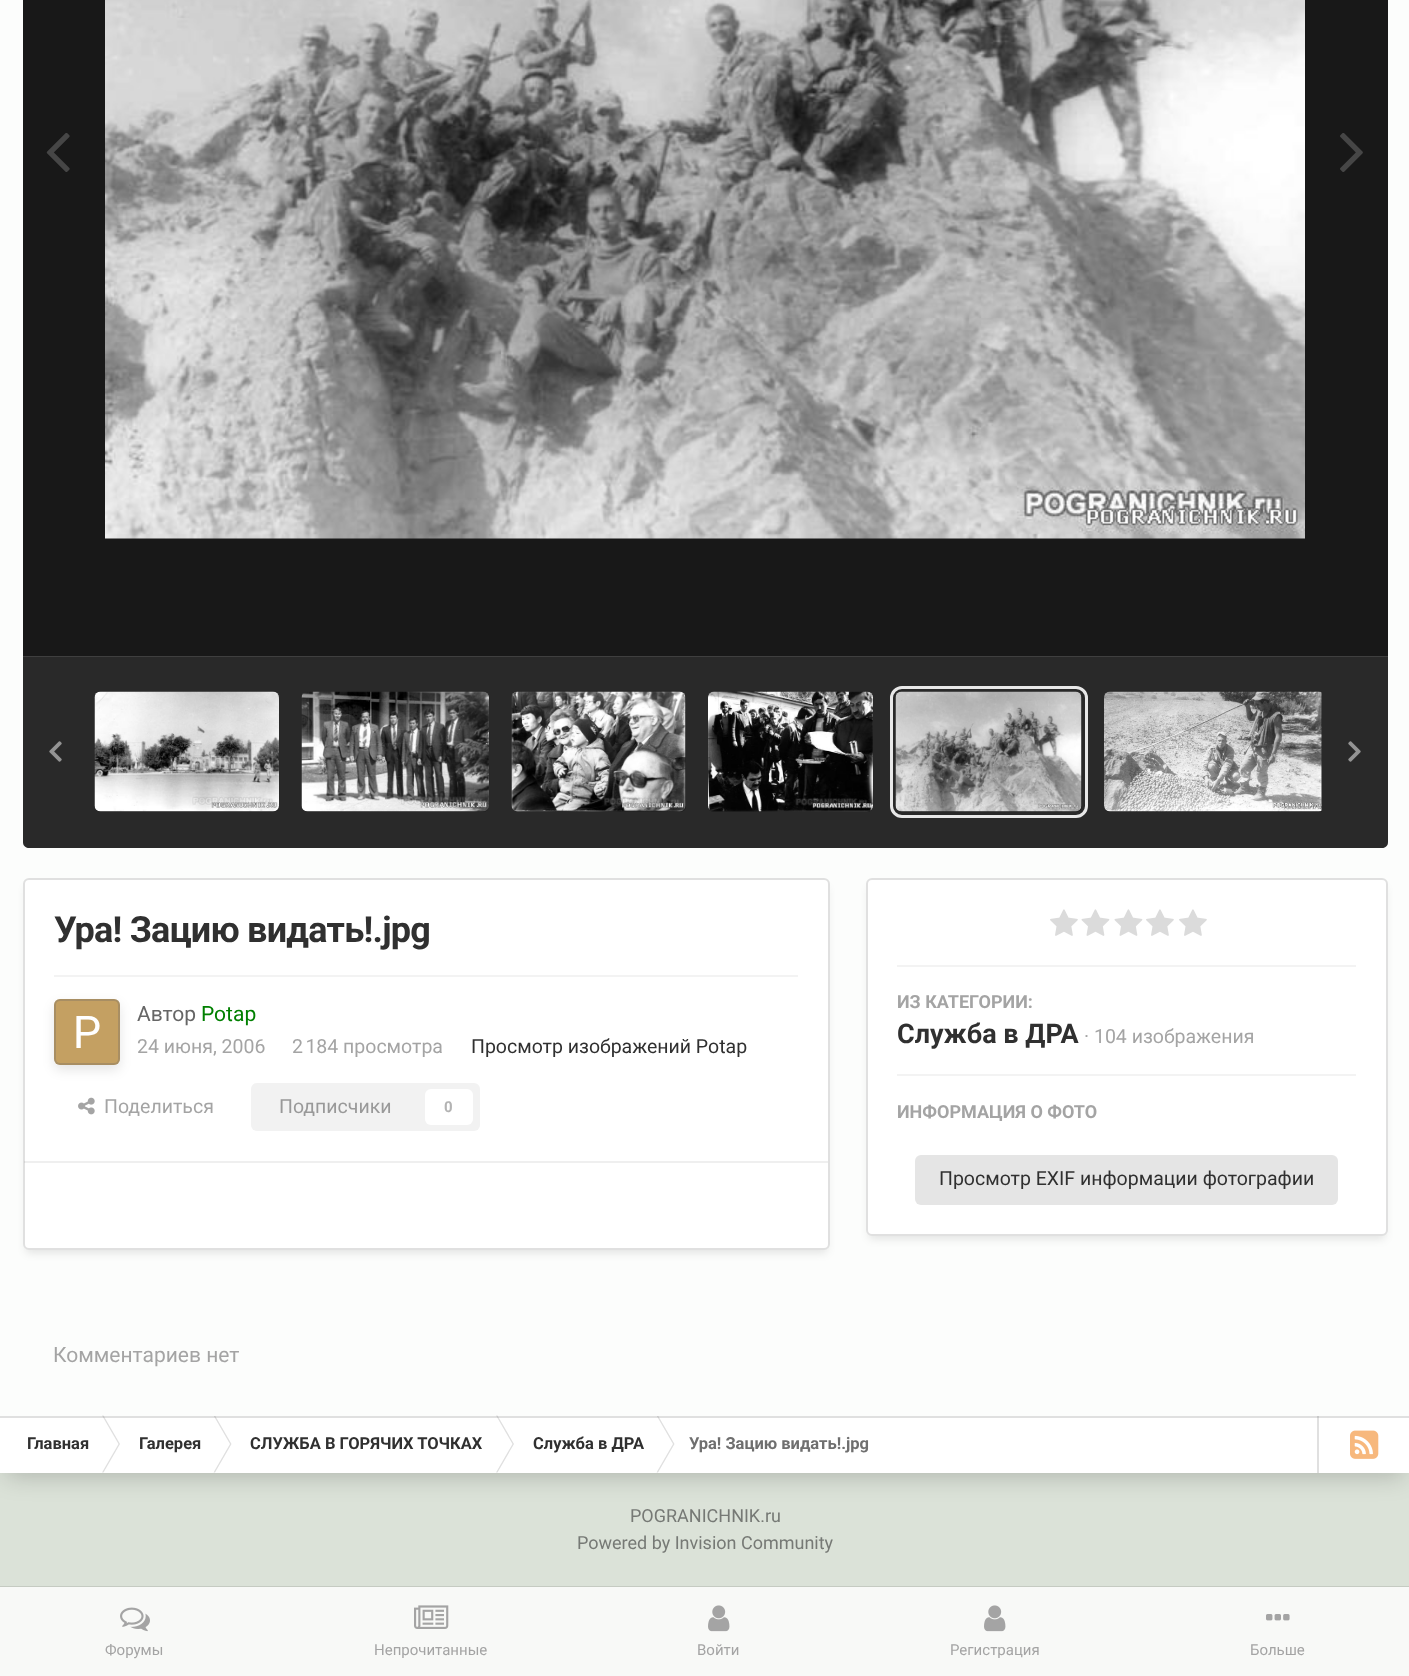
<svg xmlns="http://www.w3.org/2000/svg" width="1409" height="1676">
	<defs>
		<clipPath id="clip1"><rect x="89" y="686" width="1233" height="132" /></clipPath>
		<clipPath id="clip2"><path d="M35 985H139V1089H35ZM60 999H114C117.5 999 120 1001.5 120 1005V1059C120 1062.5 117.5 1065 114 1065H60C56.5 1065 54 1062.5 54 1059V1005C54 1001.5 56.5 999 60 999Z" clip-rule="evenodd" /></clipPath>
		<clipPath id="clip3"><rect x="0" y="1416" width="1317" height="57" /></clipPath>
	</defs>
	<rect width="100%" height="100%" fill="#DBE2D8" />
	<rect x="6" y="-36" width="1398" height="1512" fill="#000000" fill-opacity="0.2" filter="blur(12px)" />
	<rect x="0" y="0" width="1409" height="1416" fill="#FCFDFC" />
	<rect x="23" y="0" width="1365" height="656" fill="#181818" />
	<image x="105" y="0" width="1200" height="539" href="assets/img1.png" />
	<image x="46" y="133" width="24" height="39" href="assets/img2.png" />
	<image x="1340" y="133" width="23" height="39" href="assets/img3.png" />
	<path d="M23 656H1388V842C1388 845.5 1385.5 848 1382 848H29C25.5 848 23 845.5 23 842Z" fill="#3B3B3B" />
	<path d="M23 656H1388V842C1388 845.5 1385.5 848 1382 848H29C25.5 848 23 845.5 23 842Z" fill="#000000" fill-opacity="0.3" />
	<rect x="23" y="656" width="1365" height="1" fill="#3F3F3F" />
	<rect x="95" y="692" width="184" height="120" rx="6" fill="#141414" />
	<rect x="95" y="692" width="184" height="120" rx="6" fill="#3B3B3B" fill-opacity="0.3" />
	<image x="94" y="691" width="185" height="121" href="assets/img4.png" />
	<rect x="302" y="692" width="187" height="120" rx="6" fill="#141414" />
	<rect x="302" y="692" width="187" height="120" rx="6" fill="#3B3B3B" fill-opacity="0.3" />
	<image x="301" y="691" width="188" height="121" href="assets/img5.png" />
	<rect x="512" y="692" width="174" height="120" rx="6" fill="#141414" />
	<rect x="512" y="692" width="174" height="120" rx="6" fill="#3B3B3B" fill-opacity="0.3" />
	<image x="511" y="691" width="175" height="121" href="assets/img6.png" />
	<rect x="708" y="692" width="165" height="120" rx="6" fill="#141414" />
	<rect x="708" y="692" width="165" height="120" rx="6" fill="#3B3B3B" fill-opacity="0.3" />
	<image x="708" y="691" width="165" height="121" href="assets/img7.png" />
	<rect x="896" y="692" width="186" height="120" rx="6" fill="#141414" />
	<rect x="896" y="692" width="186" height="120" rx="6" fill="#3B3B3B" fill-opacity="0.3" />
	<rect x="891.5" y="687.5" width="195" height="129" rx="10.5" fill="none" stroke="#E8E8E8" stroke-width="3" />
	<image x="895" y="691" width="187" height="121" href="assets/img8.png" />
	<g clip-path="url(#clip1)">
		<rect x="1104" y="692" width="221" height="120" rx="6" fill="#141414" />
		<rect x="1104" y="692" width="221" height="120" rx="6" fill="#3B3B3B" fill-opacity="0.3" />
	</g>
	<image x="1104" y="691" width="218" height="121" href="assets/img9.png" />
	<image x="49" y="741" width="13" height="21" href="assets/img10.png" />
	<image x="1348" y="741" width="13" height="21" href="assets/img11.png" />
	<rect x="26" y="887" width="801" height="366" rx="3" fill="#000000" fill-opacity="0.1" filter="blur(4.5px)" />
	<rect x="23" y="878" width="807" height="372" rx="6" fill="#FFFFFF" />
	<rect x="24" y="879" width="805" height="370" rx="5" fill="none" stroke="#666666" stroke-opacity="0.2" stroke-width="2" />
	<text x="54" y="942" font-family="Roboto" font-size="36" font-weight="700" letter-spacing="-0.75" fill="#303030">Ура! Зацию видать!.jpg</text>
	<rect x="54" y="975" width="744" height="2" fill="#F3F3F3" />
	<image x="54" y="999" width="66" height="66" href="assets/img12.png" />
	<g clip-path="url(#clip2)">
		<rect x="54" y="1004" width="66" height="66" rx="6" fill="#000000" fill-opacity="0.1" filter="blur(6px)" />
	</g>
	<rect x="55" y="1000" width="64" height="64" rx="5" fill="none" stroke="#666666" stroke-opacity="0.3" stroke-width="2" />
	<text x="137" y="1021" font-family="Roboto" font-size="21" fill="#666666">Автор</text>
	<text x="201" y="1021" font-family="Roboto" font-size="21" fill="#008000">Potap</text>
	<g font-family="Roboto" font-size="19.5" fill="#A4A4A4">
		<text x="137" y="1053">24 июня, 2006</text>
		<text x="292" y="1053">2 184 просмотра</text>
	</g>
	<text x="471" y="1053" font-family="Roboto" font-size="19.5" fill="#303030">Просмотр изображений Potap</text>
	<image x="78" y="1097" width="17" height="18" href="assets/img13.png" />
	<text x="104" y="1113" font-family="Roboto" font-size="19.5" fill="#A4A4A4">Поделиться</text>
	<rect x="251" y="1083" width="229" height="48" rx="6" fill="#F2F2F2" />
	<text x="279" y="1113" font-family="Roboto" font-size="19.5" fill="#999999">Подписчики</text>
	<rect x="425" y="1089" width="48" height="36" rx="6" fill="#FFFFFF" />
	<text x="444" y="1112" font-family="Roboto" font-size="15" font-weight="700" fill="#B3B3B3">0</text>
	<rect x="24" y="1161" width="804" height="2" fill="#666666" fill-opacity="0.1" />
	<rect x="869" y="887" width="516" height="352" rx="3" fill="#000000" fill-opacity="0.1" filter="blur(4.5px)" />
	<rect x="867" y="879" width="520" height="356" rx="5" fill="#FFFFFF" stroke="#E0E0E0" stroke-width="2" />
	<image x="1050" y="909" width="28" height="27" href="assets/img14.png" />
	<image x="1081" y="909" width="29" height="27" href="assets/img15.png" />
	<image x="1114" y="909" width="29" height="27" href="assets/img15.png" />
	<image x="1146" y="909" width="28" height="27" href="assets/img14.png" />
	<image x="1179" y="909" width="28" height="27" href="assets/img14.png" />
	<rect x="897" y="965" width="459" height="2" fill="#F3F3F3" />
	<text x="897" y="1008" font-family="Roboto" font-size="18" font-weight="700" fill="#A4A4A4">ИЗ КАТЕГОРИИ:</text>
	<text x="897" y="1043" font-family="Roboto" font-size="27" font-weight="700" fill="#303030">Служба в ДРА</text>
	<text x="1084" y="1043" font-family="Roboto" font-size="19.5" fill="#A4A4A4">· 104 изображения</text>
	<rect x="897" y="1074" width="459" height="2" fill="#F3F3F3" />
	<text x="897" y="1118" font-family="Roboto" font-size="18" font-weight="700" fill="#A4A4A4">ИНФОРМАЦИЯ О ФОТО</text>
	<rect x="915" y="1155" width="423" height="50" rx="6" fill="#E5E5E5" />
	<text x="939" y="1185" font-family="Roboto" font-size="19.5" fill="#303030">Просмотр EXIF информации фотографии</text>
	<text x="53" y="1362" font-family="Roboto" font-size="21" fill="#A4A4A4">Комментариев нет</text>
	<rect x="0" y="1416" width="1409" height="57" fill="#FFFFFF" />
	<path d="M102 1415.5H103.5L120 1444H118.5ZM102 1472.5H103.5L120 1444H118.5Z" fill="#E0E0E0" />
	<g clip-path="url(#clip3)">
		<path d="M213.5 1415.5H215L231.5 1444H230Z" fill="#E0E0E0" />
	</g>
	<path d="M496 1415.5H497.5L514 1444H512.5ZM496 1472.5H497.5L514 1444H512.5Z" fill="#E0E0E0" />
	<g clip-path="url(#clip3)">
		<path d="M656.5 1415.5H658L674.5 1444H673Z" fill="#E0E0E0" />
	</g>
	<rect x="1317" y="1416" width="2" height="57" fill="#E0E0E0" />
	<rect x="0" y="1416" width="1409" height="2" fill="#666666" fill-opacity="0.2" />
	<g font-family="Roboto" font-size="16.5" font-weight="700" fill="#303030">
		<text x="27" y="1449">Главная</text>
		<text x="139" y="1449">Галерея</text>
	</g>
	<path d="M213.5 1472.5H215L231.5 1444H230Z" fill="#E0E0E0" />
	<g font-family="Roboto" font-size="16.5" font-weight="700" fill="#303030">
		<text x="250" y="1449">СЛУЖБА В ГОРЯЧИХ ТОЧКАХ</text>
		<text x="533" y="1449">Служба в ДРА</text>
	</g>
	<path d="M656.5 1472.5H658L674.5 1444H673Z" fill="#E0E0E0" />
	<text x="689" y="1449" font-family="Roboto" font-size="16.5" font-weight="700" fill="#6F6F6F">Ура! Зацию видать!.jpg</text>
	<image x="1350" y="1430" width="29" height="29" href="assets/img16.png" />
	<g font-family="Roboto" font-size="18" fill="#767975">
		<text x="630" y="1522">POGRANICHNIK.ru</text>
		<text x="577" y="1549">Powered by Invision Community</text>
	</g>
	<rect x="0" y="1586" width="1409" height="1" fill="#C5CBC2" />
	<rect x="0" y="1587" width="1409" height="89" fill="#F8F9F7" />
	<image x="120" y="1607" width="30" height="25" href="assets/img17.png" />
	<text x="105" y="1655" font-family="Roboto" font-size="15" fill="#A4A4A4">Форумы</text>
	<image x="414" y="1605" width="35" height="24" href="assets/img18.png" />
	<text x="374" y="1655" font-family="Roboto" font-size="15" fill="#A4A4A4">Непрочитанные</text>
	<image x="708" y="1605" width="22" height="27" href="assets/img19.png" />
	<text x="697" y="1655" font-family="Roboto" font-size="15" fill="#A4A4A4">Войти</text>
	<image x="984" y="1605" width="22" height="27" href="assets/img19.png" />
	<text x="950" y="1655" font-family="Roboto" font-size="15" fill="#A4A4A4">Регистрация</text>
	<image x="1266" y="1614" width="24" height="7" href="assets/img20.png" />
	<text x="1250" y="1655" font-family="Roboto" font-size="15" fill="#A4A4A4">Больше</text>
</svg>
